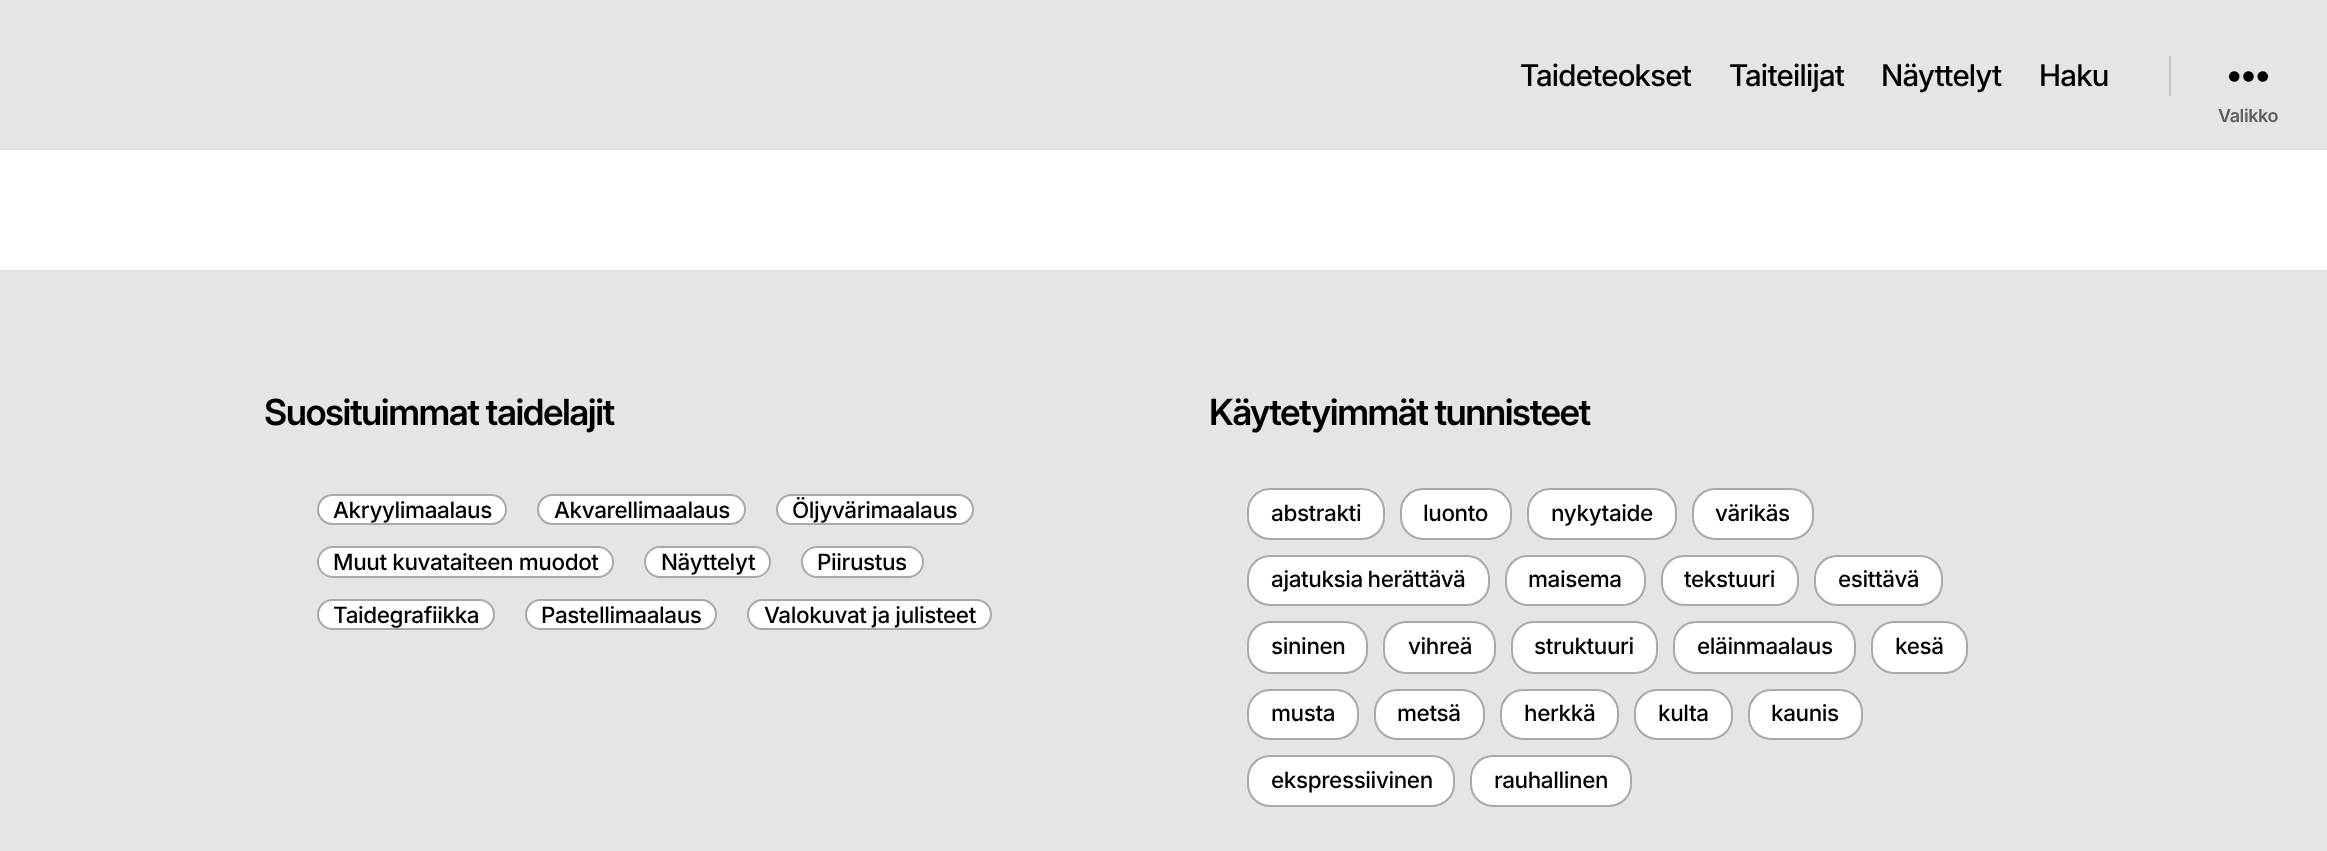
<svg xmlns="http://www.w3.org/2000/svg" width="2327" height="851">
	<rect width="100%" height="100%" fill="#FFFFFF" />
	<rect x="0" y="0" width="2327" height="150" fill="#E5E5E5" />
	<g font-family="'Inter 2'" font-size="30" font-weight="500" letter-spacing="-0.75" fill="#000000">
		<text x="1520" y="86">Taideteokset</text>
		<text x="1729" y="86">Taiteilijat</text>
		<text x="1881" y="86">Näyttelyt</text>
		<text x="2039" y="86">Haku</text>
	</g>
	<rect x="2169" y="56" width="2" height="40" fill="#C4C4C4" />
	<image x="2229" y="71" width="39" height="11" href="assets/img1.png" />
	<text x="2218" y="122" font-family="'Inter 2'" font-size="18" font-weight="600" letter-spacing="-0.4" fill="#5E5E5E">Valikko</text>
	<rect x="0" y="270" width="2327" height="581" fill="#E5E5E5" />
	<text x="264" y="425" font-family="Inter" font-size="36" font-weight="600" letter-spacing="-1.5" fill="#000000">Suosituimmat taidelajit</text>
	<rect x="318" y="495" width="188" height="29" rx="14.5" fill="#FFFFFF" stroke="#A9A9A9" stroke-width="2" />
	<text x="333" y="518" font-family="Inter" font-size="22.5" font-weight="500" letter-spacing="-0.4" fill="#000000">Akryylimaalaus</text>
	<rect x="538" y="495" width="207" height="29" rx="14.5" fill="#FFFFFF" stroke="#A9A9A9" stroke-width="2" />
	<text x="554" y="518" font-family="Inter" font-size="22.5" font-weight="500" letter-spacing="-0.4" fill="#000000">Akvarellimaalaus</text>
	<rect x="777" y="495" width="196" height="29" rx="14.5" fill="#FFFFFF" stroke="#A9A9A9" stroke-width="2" />
	<text x="792" y="518" font-family="Inter" font-size="22.5" font-weight="500" letter-spacing="-0.4" fill="#000000">Öljyvärimaalaus</text>
	<rect x="318" y="547" width="295" height="30" rx="15" fill="#FFFFFF" stroke="#A9A9A9" stroke-width="2" />
	<text x="333" y="570" font-family="Inter" font-size="22.5" font-weight="500" letter-spacing="-0.4" fill="#000000">Muut kuvataiteen muodot</text>
	<rect x="645" y="547" width="125" height="30" rx="15" fill="#FFFFFF" stroke="#A9A9A9" stroke-width="2" />
	<text x="661" y="570" font-family="Inter" font-size="22.5" font-weight="500" letter-spacing="-0.4" fill="#000000">Näyttelyt</text>
	<rect x="802" y="547" width="121" height="30" rx="15" fill="#FFFFFF" stroke="#A9A9A9" stroke-width="2" />
	<text x="817" y="570" font-family="Inter" font-size="22.5" font-weight="500" letter-spacing="-0.4" fill="#000000">Piirustus</text>
	<rect x="318" y="600" width="176" height="29" rx="14.5" fill="#FFFFFF" stroke="#A9A9A9" stroke-width="2" />
	<text x="333" y="623" font-family="Inter" font-size="22.5" font-weight="500" letter-spacing="-0.4" fill="#000000">Taidegrafiikka</text>
	<rect x="526" y="600" width="190" height="29" rx="14.5" fill="#FFFFFF" stroke="#A9A9A9" stroke-width="2" />
	<text x="541" y="623" font-family="Inter" font-size="22.5" font-weight="500" letter-spacing="-0.4" fill="#000000">Pastellimaalaus</text>
	<rect x="748" y="600" width="243" height="29" rx="14.5" fill="#FFFFFF" stroke="#A9A9A9" stroke-width="2" />
	<text x="764" y="623" font-family="Inter" font-size="22.5" font-weight="500" letter-spacing="-0.4" fill="#000000">Valokuvat ja julisteet</text>
	<text x="1209" y="425" font-family="Inter" font-size="36" font-weight="600" letter-spacing="-1.5" fill="#000000">Käytetyimmät tunnisteet</text>
	<rect x="1248" y="489" width="136" height="50" rx="22" fill="#FFFFFF" stroke="#A9A9A9" stroke-width="2" />
	<text x="1271" y="521" font-family="Inter" font-size="22.5" font-weight="500" letter-spacing="-0.4" fill="#000000">abstrakti</text>
	<rect x="1401" y="489" width="110" height="50" rx="22" fill="#FFFFFF" stroke="#A9A9A9" stroke-width="2" />
	<text x="1423" y="521" font-family="Inter" font-size="22.5" font-weight="500" letter-spacing="-0.4" fill="#000000">luonto</text>
	<rect x="1528" y="489" width="148" height="50" rx="22" fill="#FFFFFF" stroke="#A9A9A9" stroke-width="2" />
	<text x="1551" y="521" font-family="Inter" font-size="22.5" font-weight="500" letter-spacing="-0.4" fill="#000000">nykytaide</text>
	<rect x="1693" y="489" width="120" height="50" rx="22" fill="#FFFFFF" stroke="#A9A9A9" stroke-width="2" />
	<text x="1715" y="521" font-family="Inter" font-size="22.5" font-weight="500" letter-spacing="-0.4" fill="#000000">värikäs</text>
	<rect x="1248" y="556" width="241" height="49" rx="22" fill="#FFFFFF" stroke="#A9A9A9" stroke-width="2" />
	<text x="1271" y="587" word-spacing="-1" font-family="Inter" font-size="22.5" font-weight="500" letter-spacing="-0.4" fill="#000000">ajatuksia herättävä</text>
	<rect x="1506" y="556" width="139" height="49" rx="22" fill="#FFFFFF" stroke="#A9A9A9" stroke-width="2" />
	<text x="1528" y="587" font-family="Inter" font-size="22.5" font-weight="500" letter-spacing="-0.4" fill="#000000">maisema</text>
	<rect x="1662" y="556" width="136" height="49" rx="22" fill="#FFFFFF" stroke="#A9A9A9" stroke-width="2" />
	<text x="1684" y="587" font-family="Inter" font-size="22.5" font-weight="500" letter-spacing="-0.4" fill="#000000">tekstuuri</text>
	<rect x="1815" y="556" width="127" height="49" rx="22" fill="#FFFFFF" stroke="#A9A9A9" stroke-width="2" />
	<text x="1838" y="587" font-family="Inter" font-size="22.5" font-weight="500" letter-spacing="-0.4" fill="#000000">esittävä</text>
	<rect x="1248" y="622" width="119" height="51" rx="22" fill="#FFFFFF" stroke="#A9A9A9" stroke-width="2" />
	<text x="1271" y="654" font-family="Inter" font-size="22.5" font-weight="500" letter-spacing="-0.4" fill="#000000">sininen</text>
	<rect x="1384" y="622" width="111" height="51" rx="22" fill="#FFFFFF" stroke="#A9A9A9" stroke-width="2" />
	<text x="1408" y="654" font-family="Inter" font-size="22.5" font-weight="500" letter-spacing="-0.4" fill="#000000">vihreä</text>
	<rect x="1512" y="622" width="145" height="51" rx="22" fill="#FFFFFF" stroke="#A9A9A9" stroke-width="2" />
	<text x="1534" y="654" font-family="Inter" font-size="22.5" font-weight="500" letter-spacing="-0.4" fill="#000000">struktuuri</text>
	<rect x="1674" y="622" width="181" height="51" rx="22" fill="#FFFFFF" stroke="#A9A9A9" stroke-width="2" />
	<text x="1697" y="654" font-family="Inter" font-size="22.5" font-weight="500" letter-spacing="-0.4" fill="#000000">eläinmaalaus</text>
	<rect x="1872" y="622" width="95" height="51" rx="22" fill="#FFFFFF" stroke="#A9A9A9" stroke-width="2" />
	<text x="1895" y="654" font-family="Inter" font-size="22.5" font-weight="500" letter-spacing="-0.4" fill="#000000">kesä</text>
	<rect x="1248" y="690" width="110" height="49" rx="22" fill="#FFFFFF" stroke="#A9A9A9" stroke-width="2" />
	<text x="1271" y="721" font-family="Inter" font-size="22.5" font-weight="500" letter-spacing="-0.4" fill="#000000">musta</text>
	<rect x="1375" y="690" width="109" height="49" rx="22" fill="#FFFFFF" stroke="#A9A9A9" stroke-width="2" />
	<text x="1397" y="721" font-family="Inter" font-size="22.5" font-weight="500" letter-spacing="-0.4" fill="#000000">metsä</text>
	<rect x="1501" y="690" width="117" height="49" rx="22" fill="#FFFFFF" stroke="#A9A9A9" stroke-width="2" />
	<text x="1524" y="721" font-family="Inter" font-size="22.5" font-weight="500" letter-spacing="-0.4" fill="#000000">herkkä</text>
	<rect x="1635" y="690" width="97" height="49" rx="22" fill="#FFFFFF" stroke="#A9A9A9" stroke-width="2" />
	<text x="1658" y="721" font-family="Inter" font-size="22.5" font-weight="500" letter-spacing="-0.4" fill="#000000">kulta</text>
	<rect x="1749" y="690" width="113" height="49" rx="22" fill="#FFFFFF" stroke="#A9A9A9" stroke-width="2" />
	<text x="1771" y="721" font-family="Inter" font-size="22.5" font-weight="500" letter-spacing="-0.4" fill="#000000">kaunis</text>
	<rect x="1248" y="756" width="206" height="50" rx="22" fill="#FFFFFF" stroke="#A9A9A9" stroke-width="2" />
	<text x="1271" y="788" font-family="Inter" font-size="22.5" font-weight="500" letter-spacing="-0.4" fill="#000000">ekspressiivinen</text>
	<rect x="1471" y="756" width="160" height="50" rx="22" fill="#FFFFFF" stroke="#A9A9A9" stroke-width="2" />
	<text x="1494" y="788" font-family="Inter" font-size="22.5" font-weight="500" letter-spacing="-0.4" fill="#000000">rauhallinen</text>
</svg>
